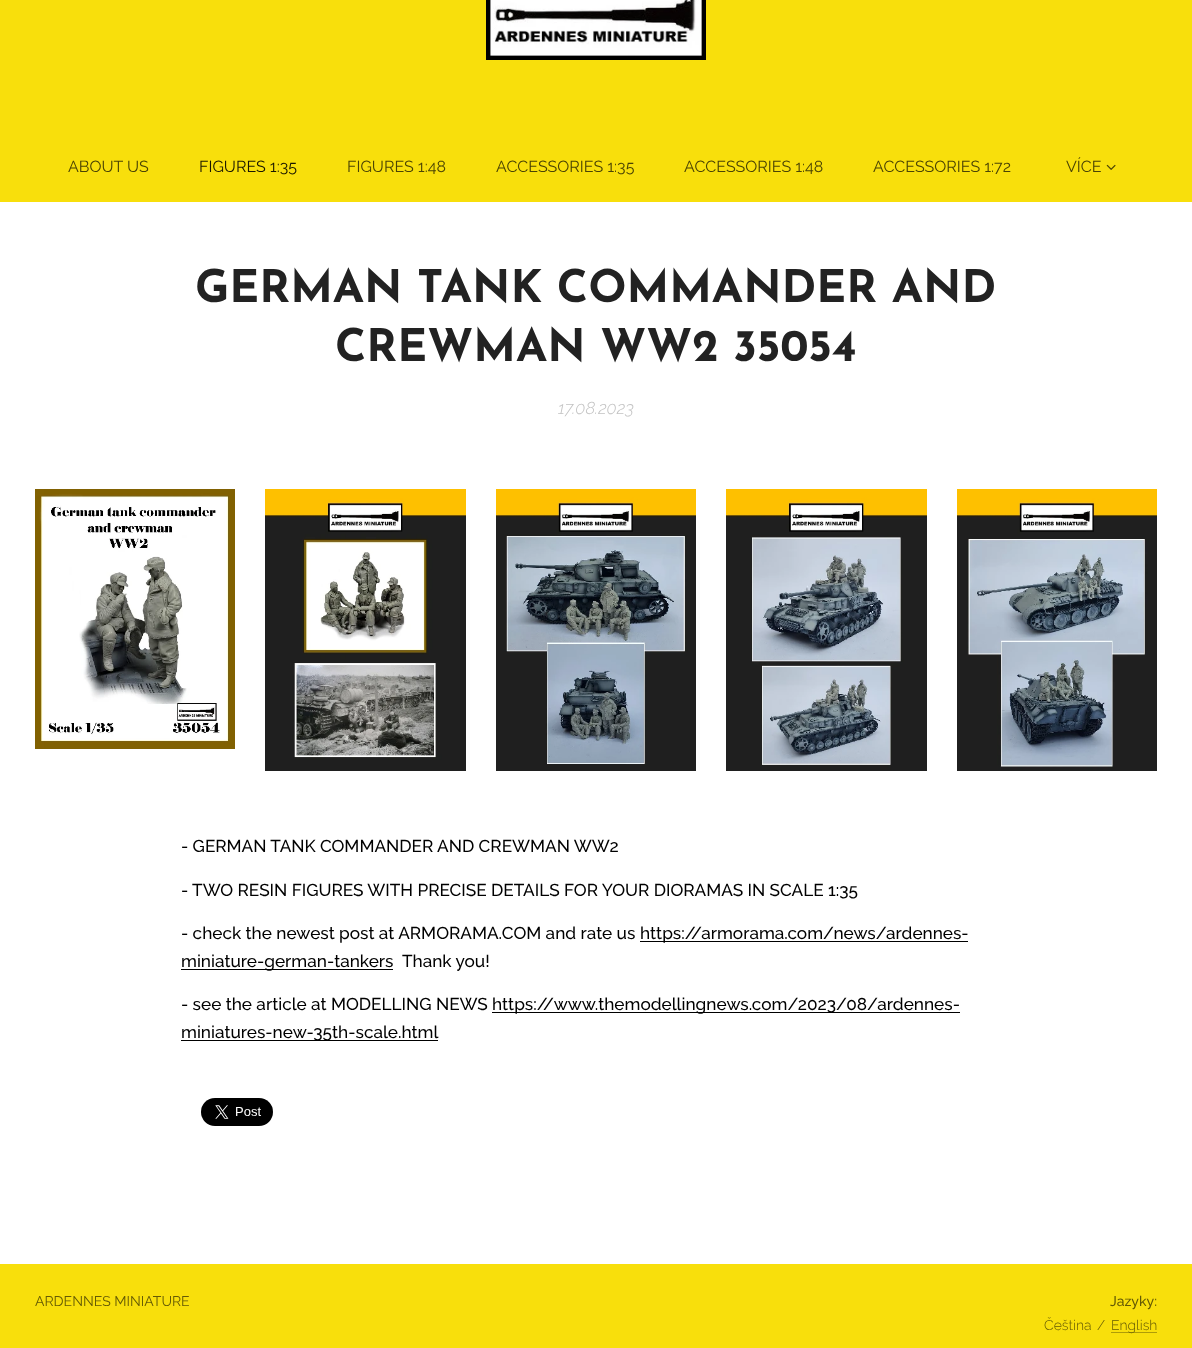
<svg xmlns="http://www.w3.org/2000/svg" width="1192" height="1348">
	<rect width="100%" height="100%" fill="#FFFFFF" />
	<rect x="0" y="0" width="1192" height="202" fill="#F8DF0C" />
	<image x="486" y="0" width="220" height="60" href="assets/img1.png" />
	<text x="68" y="172" font-family="Raleway" font-size="16" fill="#4A4304">ABOUT US</text>
	<text x="199" y="172" font-family="Raleway" font-size="16" fill="#191601">FIGURES 1:35</text>
	<g font-family="Raleway" font-size="16" fill="#4A4304">
		<text x="347" y="172">FIGURES 1:48</text>
		<text x="496" y="172">ACCESSORIES 1:35</text>
		<text x="684" y="172">ACCESSORIES 1:48</text>
		<text x="873" y="172">ACCESSORIES 1:72</text>
		<text x="1066" y="172">VÍCE</text>
	</g>
	<image x="1106" y="164" width="10" height="6" href="assets/img2.png" />
	<g font-family="Josefin Sans" font-size="45" font-weight="700" fill="#222222">
		<text x="195" y="302">GERMAN TANK COMMANDER AND</text>
		<text x="335" y="361">CREWMAN WW2 35054</text>
	</g>
	<text x="558" y="414" font-family="Raleway" font-size="17.2" font-weight="300" font-style="italic" fill="#C3C3C3">17.08.2023</text>
	<image x="35" y="489" width="200" height="260" href="assets/img3.png" />
	<image x="265" y="489" width="201" height="282" href="assets/img4.png" />
	<image x="496" y="489" width="200" height="282" href="assets/img5.png" />
	<image x="726" y="489" width="201" height="282" href="assets/img6.png" />
	<image x="957" y="489" width="200" height="282" href="assets/img7.png" />
	<g font-family="Raleway" font-size="17.2" font-weight="500" fill="#000000">
		<text x="181" y="852">- GERMAN TANK COMMANDER AND CREWMAN WW2</text>
		<text x="181" y="896">- TWO RESIN FIGURES WITH PRECISE DETAILS FOR YOUR DIORAMAS IN SCALE 1:35</text>
		<text x="181" y="939">- check the newest post at ARMORAMA.COM and rate us</text>
	</g>
	<rect x="640" y="941" width="328" height="1" fill="#000000" />
	<text x="640" y="939" font-family="Raleway" font-size="17.2" font-weight="500" fill="#000000">https://armorama.com/news/ardennes-</text>
	<rect x="181" y="969" width="212" height="1" fill="#000000" />
	<g font-family="Raleway" font-size="17.2" font-weight="500" fill="#000000">
		<text x="181" y="967">miniature-german-tankers</text>
		<text x="402" y="967">Thank you!</text>
		<text x="181" y="1010">- see the article at MODELLING NEWS</text>
	</g>
	<rect x="492" y="1012" width="468" height="1" fill="#000000" />
	<text x="492" y="1010" font-family="Raleway" font-size="17.2" font-weight="500" fill="#000000">https://www.themodellingnews.com/2023/08/ardennes-</text>
	<rect x="181" y="1040" width="257" height="1" fill="#000000" />
	<text x="181" y="1038" font-family="Raleway" font-size="17.2" font-weight="500" fill="#000000">miniatures-new-35th-scale.html</text>
	<image x="201" y="1098" width="72" height="28" href="assets/img8.png" />
	<rect x="0" y="1264" width="1192" height="84" fill="#F8DF0C" />
	<text x="35" y="1306" font-family="Raleway" font-size="14" fill="#635905">ARDENNES MINIATURE</text>
	<text x="1110" y="1306" font-family="Raleway" font-size="14" font-weight="500" fill="#635905">Jazyky:</text>
	<g font-family="Raleway" font-size="14" font-weight="300" fill="#635905">
		<text x="1044" y="1330">Čeština</text>
		<text x="1097" y="1330">/</text>
	</g>
	<rect x="1111" y="1332" width="46" height="1" fill="#AE9C08" />
	<text x="1111" y="1330" font-family="Raleway" font-size="14" font-weight="300" fill="#635905">English</text>
</svg>
